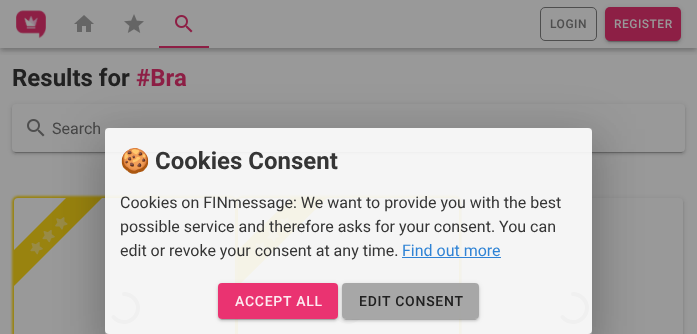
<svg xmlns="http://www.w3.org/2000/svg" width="697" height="334">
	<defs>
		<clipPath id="clip1"><rect x="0" y="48" width="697" height="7" /></clipPath>
		<clipPath id="clip2"><rect x="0" y="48" width="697" height="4" /></clipPath>
		<clipPath id="clip3"><path d="M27 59H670V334H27ZM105 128H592V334H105Z" clip-rule="evenodd" /></clipPath>
		<clipPath id="clip4"><path d="M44 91H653V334H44ZM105 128H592V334H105Z" clip-rule="evenodd" /></clipPath>
		<clipPath id="clip5"><path d="M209 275H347V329H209ZM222 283H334C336 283 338 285 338 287V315C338 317 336 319 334 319H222C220 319 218 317 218 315V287C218 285 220 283 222 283Z" clip-rule="evenodd" /></clipPath>
		<clipPath id="clip6"><path d="M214 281H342V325H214ZM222 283H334C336 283 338 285 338 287V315C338 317 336 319 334 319H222C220 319 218 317 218 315V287C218 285 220 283 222 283Z" clip-rule="evenodd" /></clipPath>
		<clipPath id="clip7"><path d="M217 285H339V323H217ZM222 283H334C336 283 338 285 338 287V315C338 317 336 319 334 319H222C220 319 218 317 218 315V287C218 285 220 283 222 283Z" clip-rule="evenodd" /></clipPath>
		<clipPath id="clip8"><path d="M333 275H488V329H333ZM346 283H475C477 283 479 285 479 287V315C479 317 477 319 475 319H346C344 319 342 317 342 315V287C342 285 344 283 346 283Z" clip-rule="evenodd" /></clipPath>
		<clipPath id="clip9"><path d="M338 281H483V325H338ZM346 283H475C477 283 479 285 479 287V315C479 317 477 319 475 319H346C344 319 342 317 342 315V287C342 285 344 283 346 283Z" clip-rule="evenodd" /></clipPath>
		<clipPath id="clip10"><path d="M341 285H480V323H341ZM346 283H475C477 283 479 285 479 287V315C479 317 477 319 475 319H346C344 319 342 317 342 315V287C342 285 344 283 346 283Z" clip-rule="evenodd" /></clipPath>
	</defs>
	<rect width="100%" height="100%" fill="#999999" />
	<g clip-path="url(#clip1)">
		<rect x="0" y="4" width="697" height="48" fill="#0F0F0F" fill-opacity="0.14" filter="blur(2.5px)" />
	</g>
	<g clip-path="url(#clip2)">
		<rect x="1" y="3" width="695" height="46" fill="#0F0F0F" fill-opacity="0.2" filter="blur(2px)" />
	</g>
	<image x="16" y="10" width="30" height="29" href="assets/img1.png" />
	<image x="74" y="15" width="20" height="17" href="assets/img2.png" />
	<image x="124" y="14" width="20" height="19" href="assets/img3.png" />
	<rect x="159" y="46" width="50" height="2" fill="#8D1F45" />
	<image x="175" y="15" width="18" height="18" href="assets/img4.png" />
	<rect x="540.5" y="7.5" width="56" height="33" rx="4.5" fill="none" stroke="#4E4E4E" />
	<text x="550" y="28" font-family="Roboto" font-size="12" font-weight="500" letter-spacing="0.5" fill="#4E4E4E">LOGIN</text>
	<rect x="605" y="8" width="76" height="34" rx="5" fill="#0F0F0F" fill-opacity="0.12" filter="blur(2.5px)" />
	<rect x="605" y="9" width="76" height="34" rx="5" fill="#0F0F0F" fill-opacity="0.14" filter="blur(1px)" />
	<rect x="607" y="12" width="72" height="30" rx="3" fill="#0F0F0F" fill-opacity="0.2" filter="blur(0.5px)" />
	<rect x="605" y="7" width="76" height="34" rx="5" fill="#8D1F45" />
	<text x="614" y="28" font-family="Roboto" font-size="12" font-weight="500" letter-spacing="0.5" fill="#999999">REGISTER</text>
	<text x="12" y="86" font-family="Roboto" font-size="24" font-weight="700" fill="#212121">Results for</text>
	<text x="136" y="86" font-family="Roboto" font-size="24" font-weight="700" fill="#8D1F45">#Bra</text>
	<rect x="12" y="105" width="673" height="48" rx="4" fill="#0F0F0F" fill-opacity="0.12" filter="blur(2.5px)" />
	<rect x="12" y="106" width="673" height="48" rx="4" fill="#0F0F0F" fill-opacity="0.14" filter="blur(1px)" />
	<rect x="14" y="109" width="669" height="44" rx="2" fill="#0F0F0F" fill-opacity="0.2" filter="blur(0.5px)" />
	<rect x="12" y="104" width="673" height="48" rx="4" fill="#999999" />
	<image x="27" y="119" width="18" height="18" href="assets/img5.png" />
	<text x="52" y="134" font-family="Roboto" font-size="16" fill="#464646">Search</text>
	<rect x="12" y="196" width="225" height="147" rx="6" fill="#99830F" filter="blur(1px)" />
	<rect x="14" y="198" width="221" height="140" rx="4" fill="#999999" />
	<path d="M66 198H102L14 286V250Z" fill="#99830F" />
	<image x="55" y="217" width="13" height="13" href="assets/img6.png" />
	<image x="30" y="242" width="13" height="13" href="assets/img8.png" />
	<image x="42" y="230" width="13" height="13" href="assets/img7.png" />
	<path d="M124 294C131.5 294 138 300.5 138 308C138 315.5 131.5 322 124 322C120 322 116 320 113.5 317" fill="none" stroke="#656565" stroke-width="4" stroke-linecap="round" />
	<rect x="236" y="196" width="225" height="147" rx="6" fill="#99830F" filter="blur(1px)" />
	<rect x="238" y="198" width="221" height="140" rx="4" fill="#999999" />
	<path d="M291 198H327L238 286V250Z" fill="#99830F" />
	<image x="267" y="229" width="13" height="13" href="assets/img10.png" />
	<image x="279" y="217" width="13" height="13" href="assets/img9.png" />
	<image x="254" y="242" width="13" height="13" href="assets/img11.png" />
	<path d="M348 294C355.5 294 362 300.5 362 308C362 315.5 355.5 322 348 322C344 322 340 320 337.5 317" fill="none" stroke="#656565" stroke-width="4" stroke-linecap="round" />
	<rect x="462" y="199" width="221" height="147" rx="4" fill="#0F0F0F" fill-opacity="0.12" filter="blur(2.5px)" />
	<rect x="462" y="200" width="221" height="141" rx="4" fill="#0F0F0F" fill-opacity="0.14" filter="blur(1px)" />
	<rect x="462" y="198" width="221" height="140" rx="4" fill="#999999" />
	<path d="M573 294C580.5 294 587 300.5 587 308C587 315.5 580.5 322 573 322C569 322 565 320 562.5 317" fill="none" stroke="#656565" stroke-width="4" stroke-linecap="round" />
	<g clip-path="url(#clip3)">
		<rect x="97" y="129" width="503" height="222" fill="#000000" fill-opacity="0.12" filter="blur(23px)" />
	</g>
	<g clip-path="url(#clip4)">
		<rect x="102" y="149" width="493" height="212" fill="#000000" fill-opacity="0.14" filter="blur(19px)" />
	</g>
	<rect x="105" y="128" width="487" height="206" rx="4" fill="#FFFFFF" fill-opacity="0.9" />
	<text x="120" y="169" font-family="Noto Color Emoji" font-size="24" font-weight="700" fill="#353535">🍪</text>
	<text x="155" y="169" font-family="Roboto" font-size="24" font-weight="700" fill="#353535">Cookies Consent</text>
	<g font-family="Roboto" font-size="16" fill="#353535">
		<text x="120" y="208">Cookies on FINmessage: We want to provide you with the best</text>
		<text x="120" y="232">possible service and therefore asks for your consent. You can</text>
		<text x="120" y="256">edit or revoke your consent at any time.</text>
	</g>
	<text x="402" y="256" font-family="Roboto" font-size="16" fill="#2F83D5">Find out more</text>
	<rect x="402" y="257" width="99" height="1" fill="#1976D2" fill-opacity="0.9" />
	<g clip-path="url(#clip5)">
		<rect x="218" y="284" width="120" height="36" rx="4" fill="#000000" fill-opacity="0.11" filter="blur(2.5px)" />
	</g>
	<g clip-path="url(#clip6)">
		<rect x="218" y="285" width="120" height="36" rx="4" fill="#000000" fill-opacity="0.13" filter="blur(1px)" />
	</g>
	<g clip-path="url(#clip7)">
		<rect x="220" y="288" width="116" height="32" rx="2" fill="#000000" fill-opacity="0.18" filter="blur(0.5px)" />
	</g>
	<rect x="218" y="283" width="120" height="36" rx="4" fill="#E91E63" fill-opacity="0.9" />
	<text x="235" y="306" font-family="Roboto" font-size="14" font-weight="500" letter-spacing="0.75" fill="#FDEBF1">ACCEPT ALL</text>
	<g clip-path="url(#clip8)">
		<rect x="342" y="284" width="137" height="36" rx="4" fill="#000000" fill-opacity="0.11" filter="blur(2.5px)" />
	</g>
	<g clip-path="url(#clip9)">
		<rect x="342" y="285" width="137" height="36" rx="4" fill="#000000" fill-opacity="0.13" filter="blur(1px)" />
	</g>
	<g clip-path="url(#clip10)">
		<rect x="344" y="288" width="133" height="32" rx="2" fill="#000000" fill-opacity="0.18" filter="blur(0.5px)" />
	</g>
	<rect x="342" y="283" width="137" height="36" rx="4" fill="#9E9E9E" fill-opacity="0.9" />
	<text x="359" y="306" font-family="Roboto" font-size="14" font-weight="500" letter-spacing="0.75" fill="#212121">EDIT CONSENT</text>
</svg>
